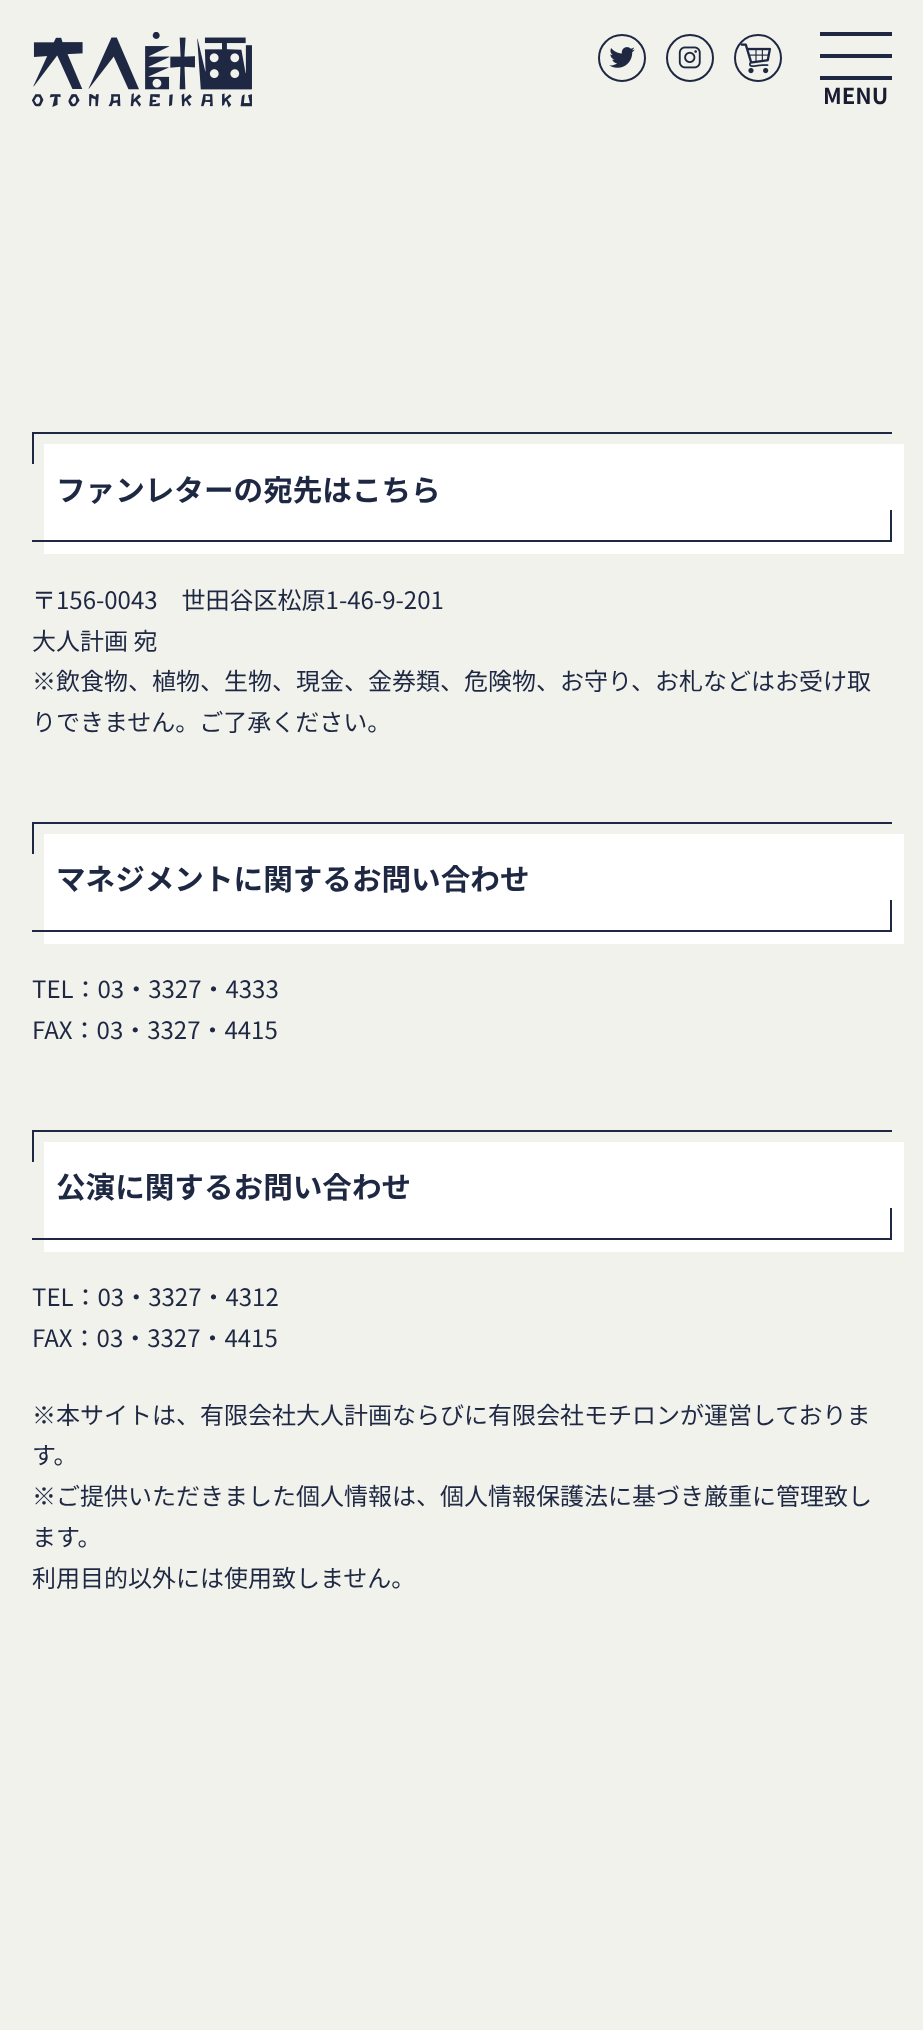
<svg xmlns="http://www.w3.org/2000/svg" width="923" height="2030">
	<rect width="100%" height="100%" fill="#F1F2EC" />
	<image x="32" y="32" width="220" height="76" href="assets/img1.png" />
	<circle cx="622" cy="58" r="23" fill="none" stroke="#1E2843" stroke-width="2" />
	<image x="609" y="47" width="26" height="21" href="assets/img2.png" />
	<circle cx="690" cy="58" r="23" fill="none" stroke="#1E2843" stroke-width="2" />
	<image x="678" y="46" width="23" height="23" href="assets/img3.png" />
	<circle cx="758" cy="58" r="23" fill="none" stroke="#1E2843" stroke-width="2" />
	<image x="740" y="43" width="31" height="31" href="assets/img4.png" />
	<rect x="820" y="32" width="72" height="4" fill="#1E2843" />
	<rect x="820" y="54" width="72" height="4" fill="#1E2843" />
	<rect x="820" y="76" width="72" height="4" fill="#1E2843" />
	<text x="823" y="104" font-family="Noto Sans JP" font-size="22" font-weight="700" fill="#1A1A30">MENU</text>
	<rect x="32" y="432" width="860" height="2" fill="#1E2843" />
	<rect x="32" y="432" width="2" height="32" fill="#1E2843" />
	<rect x="44" y="444" width="860" height="110" fill="#FFFFFF" />
	<text x="56" y="501" font-family="Noto Sans JP" font-size="29.6" font-weight="700" fill="#1E2843">ファンレターの宛先はこちら</text>
	<rect x="890" y="510" width="2" height="32" fill="#1E2843" />
	<rect x="32" y="540" width="860" height="2" fill="#1E2843" />
	<g font-family="Noto Sans JP" font-size="24" fill="#1E2843">
		<text x="32" y="609">〒156-0043　世田谷区松原1-46-9-201</text>
		<text x="32" y="650">大人計画 宛</text>
		<text x="32" y="690">※飲食物、植物、生物、現金、金券類、危険物、お守り、お札などはお受け取</text>
		<text x="32" y="731">りできません。ご了承ください。</text>
	</g>
	<rect x="32" y="822" width="860" height="2" fill="#1E2843" />
	<rect x="32" y="822" width="2" height="32" fill="#1E2843" />
	<rect x="44" y="834" width="860" height="110" fill="#FFFFFF" />
	<text x="56" y="890" font-family="Noto Sans JP" font-size="29.6" font-weight="700" fill="#1E2843">マネジメントに関するお問い合わせ</text>
	<rect x="890" y="900" width="2" height="32" fill="#1E2843" />
	<rect x="32" y="930" width="860" height="2" fill="#1E2843" />
	<g font-family="Noto Sans JP" font-size="24" fill="#1E2843">
		<text x="32" y="998">TEL：03・3327・4333</text>
		<text x="32" y="1039">FAX：03・3327・4415</text>
	</g>
	<rect x="32" y="1130" width="860" height="2" fill="#1E2843" />
	<rect x="32" y="1130" width="2" height="32" fill="#1E2843" />
	<rect x="44" y="1142" width="860" height="110" fill="#FFFFFF" />
	<text x="56" y="1198" font-family="Noto Sans JP" font-size="29.6" font-weight="700" fill="#1E2843">公演に関するお問い合わせ</text>
	<rect x="890" y="1208" width="2" height="32" fill="#1E2843" />
	<rect x="32" y="1238" width="860" height="2" fill="#1E2843" />
	<g font-family="Noto Sans JP" font-size="24" fill="#1E2843">
		<text x="32" y="1306">TEL：03・3327・4312</text>
		<text x="32" y="1347">FAX：03・3327・4415</text>
		<text x="32" y="1424">※本サイトは、有限会社大人計画ならびに有限会社モチロンが運営しておりま</text>
		<text x="32" y="1464">す。</text>
		<text x="32" y="1505">※ご提供いただきました個人情報は、個人情報保護法に基づき厳重に管理致し</text>
		<text x="32" y="1546">ます。</text>
		<text x="32" y="1587">利用目的以外には使用致しません。</text>
	</g>
</svg>
